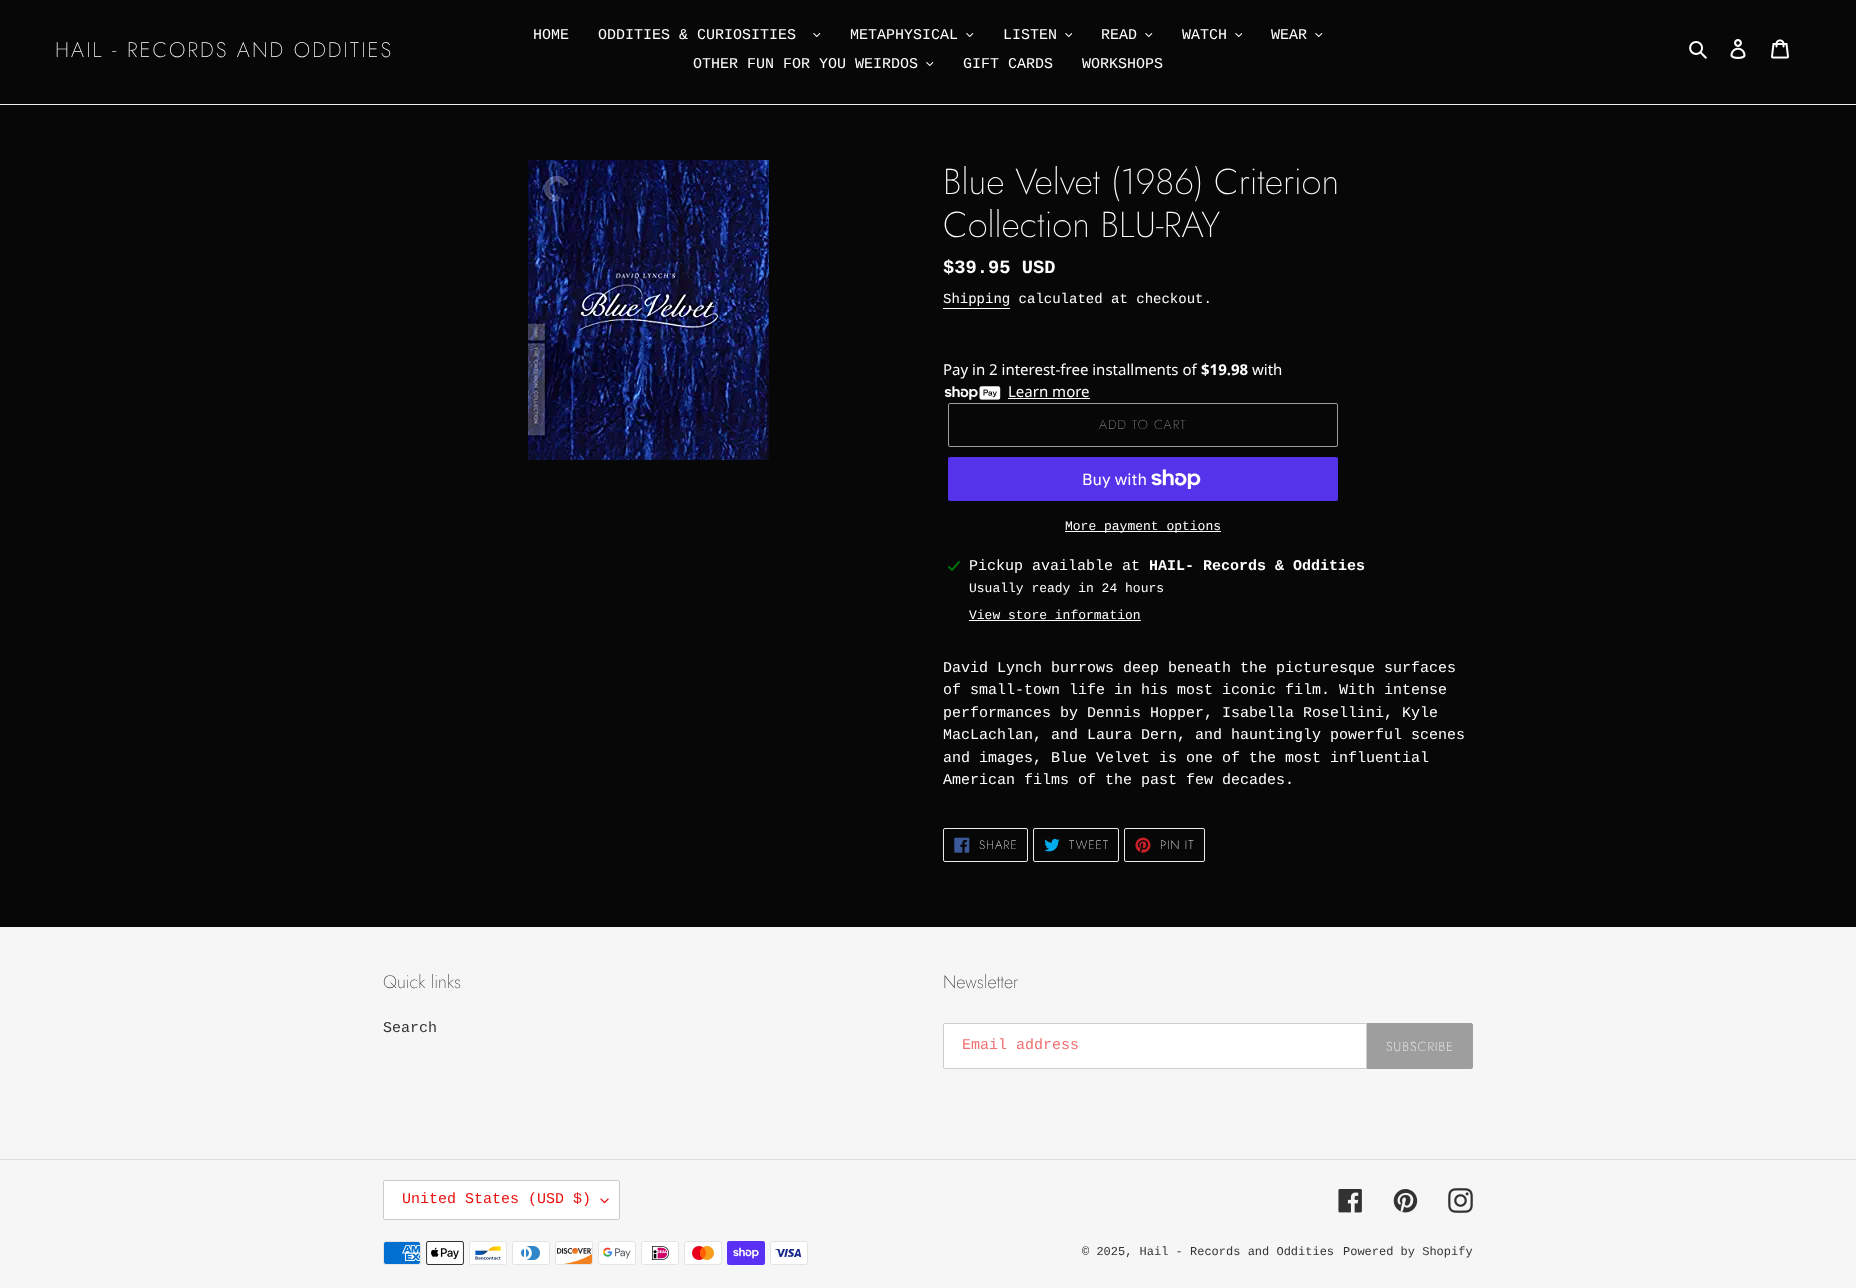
<svg xmlns="http://www.w3.org/2000/svg" width="1856" height="1288">
	<rect width="100%" height="100%" fill="#070707" />
	<rect x="0" y="104" width="1856" height="1" fill="#EBEBEB" />
	<text x="55" y="57" font-family="Jost" font-size="21" font-weight="200" letter-spacing="2.1" fill="#FFFFFF">HAIL - RECORDS AND ODDITIES</text>
	<g font-family="Liberation Mono" font-size="15" fill="#FFFFFF">
		<text x="533" y="39">HOME</text>
		<text x="598" y="39">ODDITIES &amp; CURIOSITIES</text>
	</g>
	<image x="813" y="33" width="8" height="4" href="assets/img1.png" />
	<text x="850" y="39" font-family="Liberation Mono" font-size="15" fill="#FFFFFF">METAPHYSICAL</text>
	<image x="966" y="33" width="8" height="4" href="assets/img1.png" />
	<text x="1003" y="39" font-family="Liberation Mono" font-size="15" fill="#FFFFFF">LISTEN</text>
	<image x="1065" y="33" width="7" height="4" href="assets/img2.png" />
	<text x="1101" y="39" font-family="Liberation Mono" font-size="15" fill="#FFFFFF">READ</text>
	<image x="1145" y="33" width="8" height="4" href="assets/img1.png" />
	<text x="1182" y="39" font-family="Liberation Mono" font-size="15" fill="#FFFFFF">WATCH</text>
	<image x="1235" y="33" width="7" height="4" href="assets/img2.png" />
	<text x="1271" y="39" font-family="Liberation Mono" font-size="15" fill="#FFFFFF">WEAR</text>
	<image x="1315" y="33" width="8" height="4" href="assets/img1.png" />
	<text x="693" y="68" font-family="Liberation Mono" font-size="15" fill="#FFFFFF">OTHER FUN FOR YOU WEIRDOS</text>
	<image x="926" y="62" width="8" height="4" href="assets/img1.png" />
	<g font-family="Liberation Mono" font-size="15" fill="#FFFFFF">
		<text x="963" y="68">GIFT CARDS</text>
		<text x="1082" y="68">WORKSHOPS</text>
	</g>
	<image x="1689" y="41" width="18" height="18" href="assets/img3.png" />
	<image x="1730" y="39" width="16" height="20" href="assets/img4.png" />
	<image x="1771" y="39" width="18" height="20" href="assets/img5.png" />
	<image x="528" y="160" width="241" height="300" href="assets/img6.png" />
	<g font-family="Jost" font-size="36" font-weight="200" fill="#FFFFFF">
		<text x="943" y="194">Blue Velvet (1986) Criterion</text>
		<text x="943" y="237">Collection BLU-RAY</text>
	</g>
	<text x="943" y="273" font-family="Liberation Mono" font-size="18.75" font-weight="700" fill="#FFFFFF">$39.95 USD</text>
	<text x="943" y="303" font-family="Liberation Mono" font-size="14" fill="#FFFFFF">Shipping calculated at checkout.</text>
	<rect x="943" y="308" width="67" height="1" fill="#FFFFFF" />
	<text x="943" y="375" font-family="Noto Sans" font-size="15" fill="#FFFFFF">Pay in 2 interest-free installments of</text>
	<text x="1201" y="375" font-family="Noto Sans" font-size="15" font-weight="700" fill="#FFFFFF">$19.98</text>
	<text x="1252" y="375" font-family="Noto Sans" font-size="15" fill="#FFFFFF">with</text>
	<image x="944" y="386" width="57" height="14" href="assets/img7.png" />
	<text x="1008" y="397" font-family="Noto Sans" font-size="15" fill="#FFFFFF">Learn more</text>
	<rect x="1008" y="398" width="82" height="1" fill="#FFFFFF" />
	<rect x="948.5" y="403.5" width="389" height="43" rx="1.5" fill="none" stroke="#9E9E9E" />
	<text x="1099" y="429" font-family="Jost" font-size="13" font-weight="200" letter-spacing="1" fill="#9E9E9E">ADD TO CART</text>
	<rect x="948" y="457" width="390" height="44" rx="2" fill="#5433EB" />
	<text x="1082" y="485" font-family="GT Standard" font-size="16" fill="#FFFFFF">Buy with</text>
	<image x="1151" y="469" width="50" height="20" href="assets/img8.png" />
	<rect x="1065" y="531" width="156" height="1" fill="#FFFFFF" />
	<text x="1065" y="530" font-family="Liberation Mono" font-size="13" fill="#FFFFFF">More payment options</text>
	<image x="948" y="561" width="12" height="10" href="assets/img9.png" />
	<text x="969" y="570" font-family="Liberation Mono" font-size="15" fill="#FFFFFF">Pickup available at</text>
	<text x="1149" y="570" font-family="Liberation Mono" font-size="15" font-weight="700" fill="#FFFFFF">HAIL- Records &amp; Oddities</text>
	<g font-family="Liberation Mono" font-size="13" fill="#FFFFFF">
		<text x="969" y="592">Usually ready in 24 hours</text>
		<text x="969" y="619">View store information</text>
	</g>
	<rect x="969" y="620" width="172" height="1" fill="#FFFFFF" />
	<g font-family="Liberation Mono" font-size="15" fill="#FFFFFF">
		<text x="943" y="672">David Lynch burrows deep beneath the picturesque surfaces</text>
		<text x="943" y="694">of small-town life in his most iconic film. With intense</text>
		<text x="943" y="717">performances by Dennis Hopper, Isabella Rosellini, Kyle</text>
		<text x="943" y="739">MacLachlan, and Laura Dern, and hauntingly powerful scenes</text>
		<text x="943" y="762">and images, Blue Velvet is one of the most influential</text>
		<text x="943" y="784">American films of the past few decades.</text>
	</g>
	<rect x="943.5" y="828.5" width="84" height="33" rx="1.5" fill="none" stroke="#EBEBEB" />
	<image x="954" y="837" width="16" height="16" href="assets/img10.png" />
	<text x="979" y="849" font-family="Jost" font-size="12" font-weight="200" letter-spacing="1" fill="#FFFFFF">SHARE</text>
	<rect x="1033.5" y="828.5" width="85" height="33" rx="1.5" fill="none" stroke="#EBEBEB" />
	<image x="1044" y="838" width="16" height="14" href="assets/img11.png" />
	<text x="1069" y="849" font-family="Jost" font-size="12" font-weight="200" letter-spacing="1" fill="#FFFFFF">TWEET</text>
	<rect x="1124.5" y="828.5" width="80" height="33" rx="1.5" fill="none" stroke="#EBEBEB" />
	<image x="1135" y="837" width="16" height="16" href="assets/img12.png" />
	<text x="1160" y="849" font-family="Jost" font-size="12" font-weight="200" letter-spacing="1" fill="#FFFFFF">PIN IT</text>
	<rect x="0" y="927" width="1856" height="361" fill="#F6F6F6" />
	<text x="383" y="988" font-family="Jost" font-size="18" font-weight="200" fill="#333232">Quick links</text>
	<text x="383" y="1032" font-family="Liberation Mono" font-size="15" fill="#333232">Search</text>
	<text x="943" y="988" font-family="Jost" font-size="18" font-weight="200" fill="#333232">Newsletter</text>
	<path d="M945 1023.5H1366.5V1068.5H945C944 1068.5 943.5 1068 943.5 1067V1025C943.5 1024 944 1023.5 945 1023.5Z" fill="#FFFFFF" stroke="#CCCCCC" />
	<text x="962" y="1049" font-family="Liberation Mono" font-size="15" fill="#F26F6F">Email address</text>
	<path d="M1367 1023H1471C1472 1023 1473 1024 1473 1025V1067C1473 1068 1472 1069 1471 1069H1367Z" fill="#9E9E9E" />
	<text x="1386" y="1051" font-family="Jost" font-size="13" font-weight="200" letter-spacing="1" fill="#FFFFFF">SUBSCRIBE</text>
	<rect x="0" y="1159" width="1856" height="1" fill="#DDDDDD" />
	<rect x="383" y="1180" width="237" height="40" rx="2" fill="#FFFFFF" />
	<image x="600" y="1198" width="9" height="6" href="assets/img13.png" />
	<rect x="383.5" y="1180.5" width="236" height="39" rx="1.5" fill="none" stroke="#CCCCCC" />
	<text x="402" y="1203" font-family="Liberation Mono" font-size="15" fill="#EA0F0F">United States (USD $)</text>
	<image x="1338" y="1189" width="24" height="24" href="assets/img14.png" />
	<image x="1393" y="1189" width="25" height="24" href="assets/img15.png" />
	<image x="1448" y="1188" width="25" height="25" href="assets/img16.png" />
	<image x="383" y="1241" width="38" height="24" href="assets/img17.png" />
	<image x="426" y="1241" width="38" height="24" href="assets/img18.png" />
	<image x="469" y="1241" width="38" height="24" href="assets/img19.png" />
	<image x="512" y="1241" width="38" height="24" href="assets/img20.png" />
	<image x="555" y="1241" width="38" height="24" href="assets/img21.png" />
	<image x="598" y="1241" width="38" height="24" href="assets/img22.png" />
	<image x="641" y="1241" width="38" height="24" href="assets/img23.png" />
	<image x="684" y="1241" width="38" height="24" href="assets/img24.png" />
	<image x="727" y="1241" width="38" height="24" href="assets/img25.png" />
	<image x="770" y="1241" width="38" height="24" href="assets/img26.png" />
	<g font-family="Liberation Mono" font-size="12" fill="#333232">
		<text x="1082" y="1255">© 2025, Hail - Records and Oddities</text>
		<text x="1343" y="1255">Powered by Shopify</text>
	</g>
</svg>
